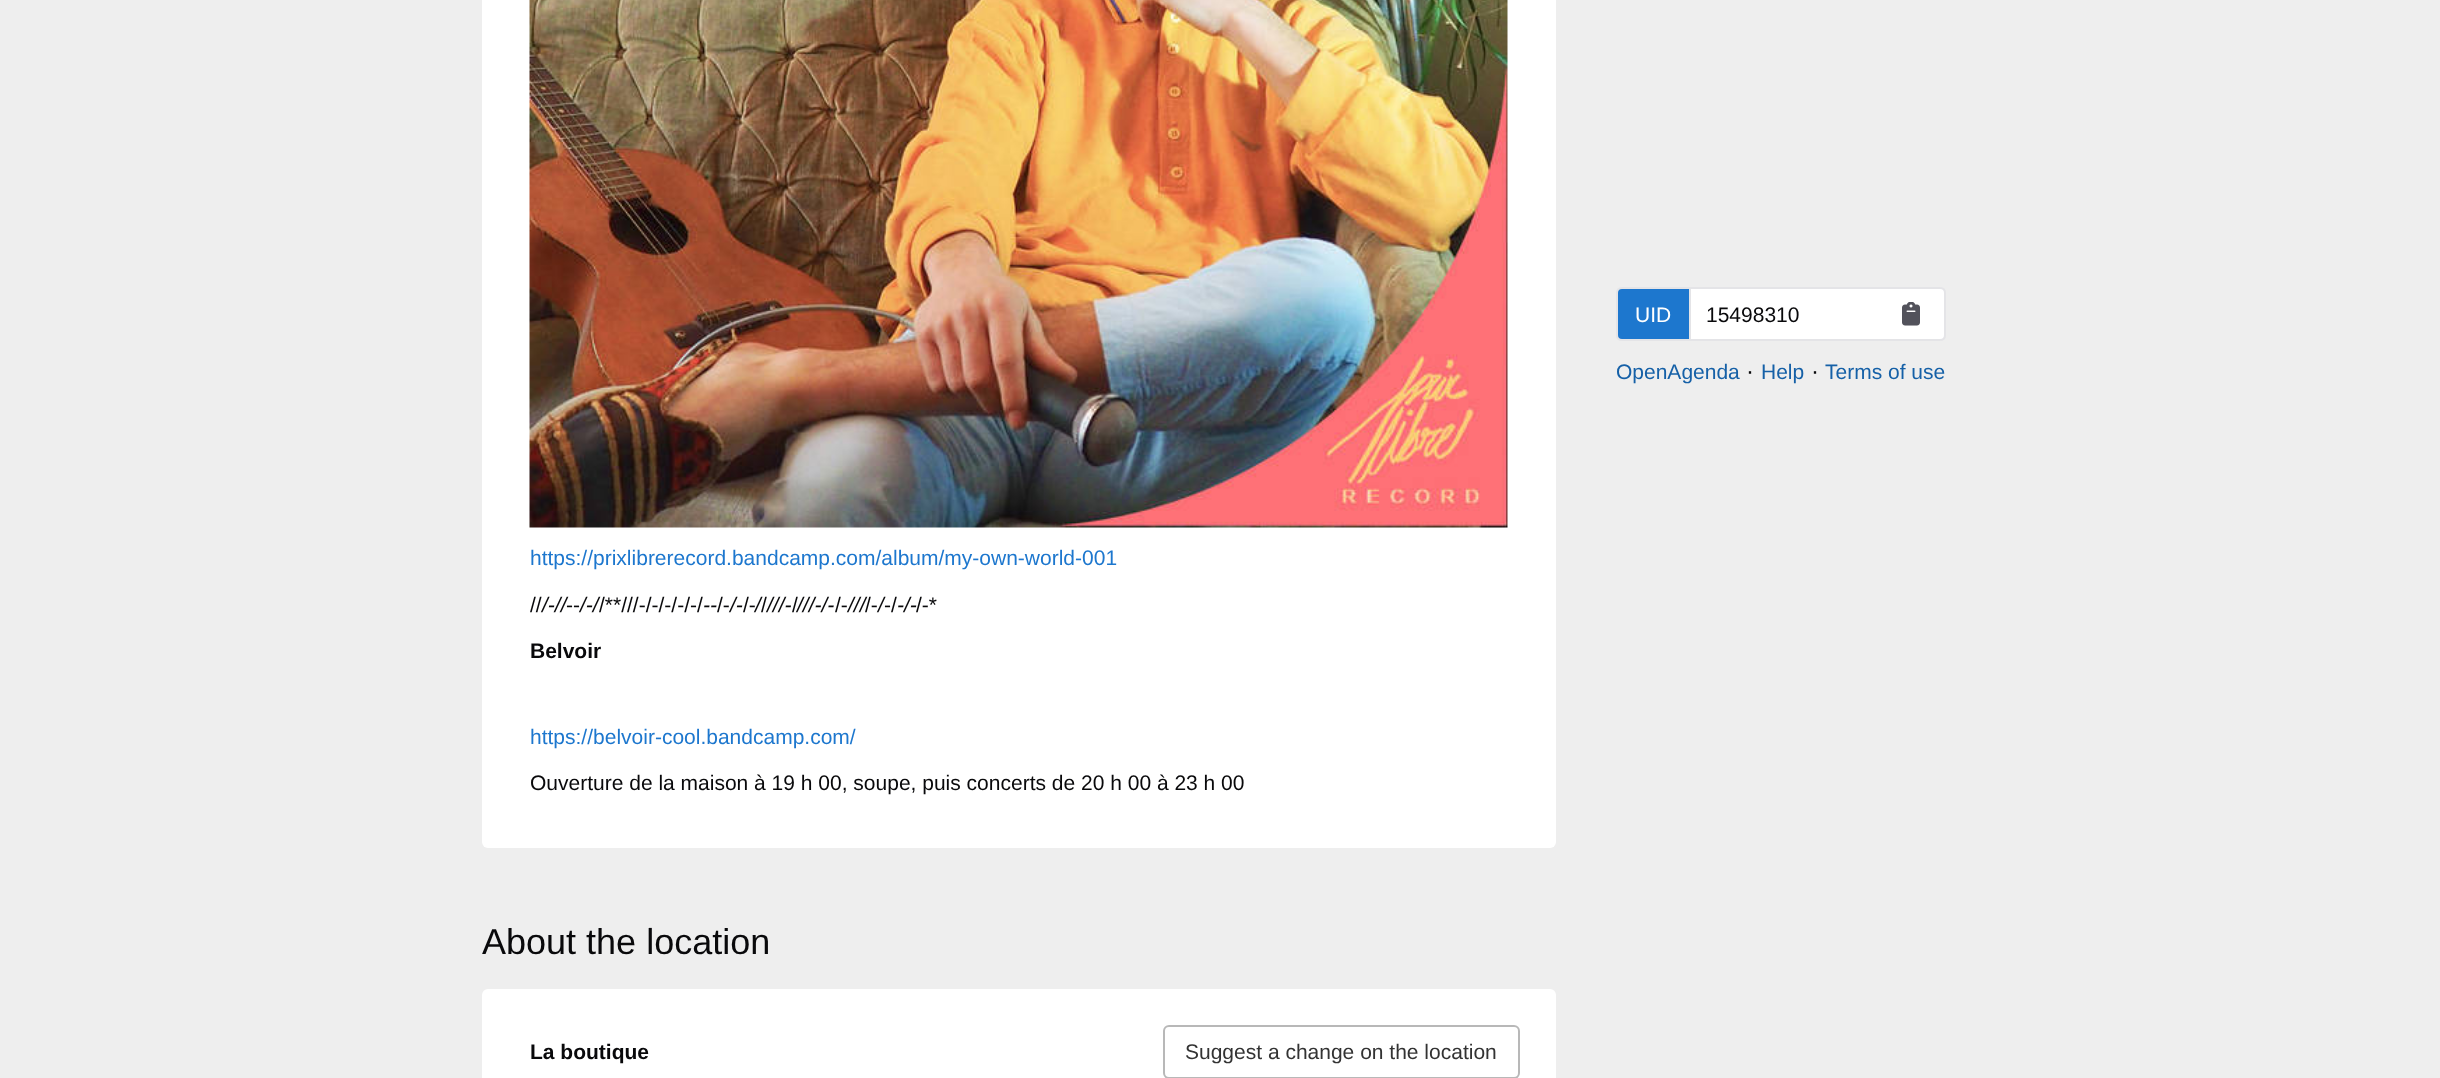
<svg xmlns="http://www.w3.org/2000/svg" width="2440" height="1078">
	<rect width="100%" height="100%" fill="#EEEEEE" />
	<path d="M1622 288H1690V340H1622C1619 340 1617 338 1617 335V293C1617 290 1619 288 1622 288Z" fill="#1D77CE" stroke="#E4E4E7" stroke-width="2" />
	<text x="1635" y="322" font-family="Liberation Sans" font-size="21" fill="#FFFFFF">UID</text>
	<path d="M1690 288H1940C1943 288 1945 290 1945 293V335C1945 338 1943 340 1940 340H1690Z" fill="#FFFFFF" stroke="#E4E4E7" stroke-width="2" />
	<text x="1706" y="322" font-family="Liberation Sans" font-size="21" fill="#09090B">15498310</text>
	<image x="1902" y="302" width="18" height="24" href="assets/img1.png" />
	<text x="1616" y="379" font-family="Liberation Sans" font-size="21" fill="#1560A7">OpenAgenda</text>
	<text x="1746" y="379" font-family="Liberation Sans" font-size="24" fill="#09090B">·</text>
	<text x="1761" y="379" font-family="Liberation Sans" font-size="21" fill="#1560A7">Help</text>
	<text x="1811" y="379" font-family="Liberation Sans" font-size="24" fill="#09090B">·</text>
	<text x="1825" y="379" font-family="Liberation Sans" font-size="21" fill="#1560A7">Terms of use</text>
	<rect x="482" y="-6" width="1074" height="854" rx="6" fill="#FFFFFF" />
	<image x="529" y="0" width="979" height="528" href="assets/img2.png" />
	<text x="530" y="565" font-family="Liberation Sans" font-size="21" fill="#1D77CE">https://prixlibrerecord.bandcamp.com/album/my-own-world-001</text>
	<text x="530" y="612" font-family="Liberation Sans" font-size="21" fill="#09090B">//</text>
	<text x="542" y="612" font-family="Liberation Sans" font-size="21" font-style="italic" fill="#09090B">/-//</text>
	<text x="566" y="612" font-family="Liberation Sans" font-size="21" fill="#09090B">--</text>
	<text x="580" y="612" font-family="Liberation Sans" font-size="21" font-style="italic" fill="#09090B">/-/</text>
	<text x="599" y="612" font-family="Liberation Sans" font-size="21" fill="#09090B">/**///-/-/-/-/-/</text>
	<text x="703" y="612" font-family="Liberation Sans" font-size="21" font-style="italic" fill="#09090B">--</text>
	<text x="717" y="612" font-family="Liberation Sans" font-size="21" fill="#09090B">/-</text>
	<text x="730" y="612" font-family="Liberation Sans" font-size="21" font-style="italic" fill="#09090B">/-</text>
	<text x="743" y="612" font-family="Liberation Sans" font-size="21" fill="#09090B">/-</text>
	<text x="755" y="612" font-family="Liberation Sans" font-size="21" font-style="italic" fill="#09090B">/</text>
	<text x="761" y="612" font-family="Liberation Sans" font-size="21" fill="#09090B">/</text>
	<text x="767" y="612" font-family="Liberation Sans" font-size="21" font-style="italic" fill="#09090B">///-</text>
	<text x="792" y="612" font-family="Liberation Sans" font-size="21" fill="#09090B">/</text>
	<text x="797" y="612" font-family="Liberation Sans" font-size="21" font-style="italic" fill="#09090B">///-/-</text>
	<text x="835" y="612" font-family="Liberation Sans" font-size="21" fill="#09090B">/-</text>
	<text x="848" y="612" font-family="Liberation Sans" font-size="21" font-style="italic" fill="#09090B">///</text>
	<text x="865" y="612" font-family="Liberation Sans" font-size="21" fill="#09090B">/-</text>
	<text x="878" y="612" font-family="Liberation Sans" font-size="21" font-style="italic" fill="#09090B">/</text>
	<text x="884" y="612" font-family="Liberation Sans" font-size="21" fill="#09090B">-/</text>
	<text x="897" y="612" font-family="Liberation Sans" font-size="21" font-style="italic" fill="#09090B">-/-</text>
	<text x="916" y="612" font-family="Liberation Sans" font-size="21" fill="#09090B">/-*</text>
	<text x="530" y="658" font-family="Liberation Sans" font-size="21" font-weight="700" fill="#09090B">Belvoir</text>
	<text x="530" y="744" font-family="Liberation Sans" font-size="21" fill="#1D77CE">https://belvoir-cool.bandcamp.com/</text>
	<text x="530" y="790" font-family="Liberation Sans" font-size="21" fill="#09090B">Ouverture de la maison à 19 h 00, soupe, puis concerts de 20 h 00 à 23 h 00</text>
	<text x="482" y="954" font-family="Liberation Sans" font-size="36" fill="#09090B">About the location</text>
	<rect x="482" y="989" width="1074" height="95" rx="6" fill="#FFFFFF" />
	<text x="530" y="1059" font-family="Liberation Sans" font-size="21" font-weight="700" fill="#09090B">La boutique</text>
	<rect x="1164" y="1026" width="355" height="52" rx="5" fill="none" stroke="#B8B8B8" stroke-width="2" />
	<text x="1185" y="1059" font-family="Liberation Sans" font-size="21" fill="#333333">Suggest a change on the location</text>
</svg>
